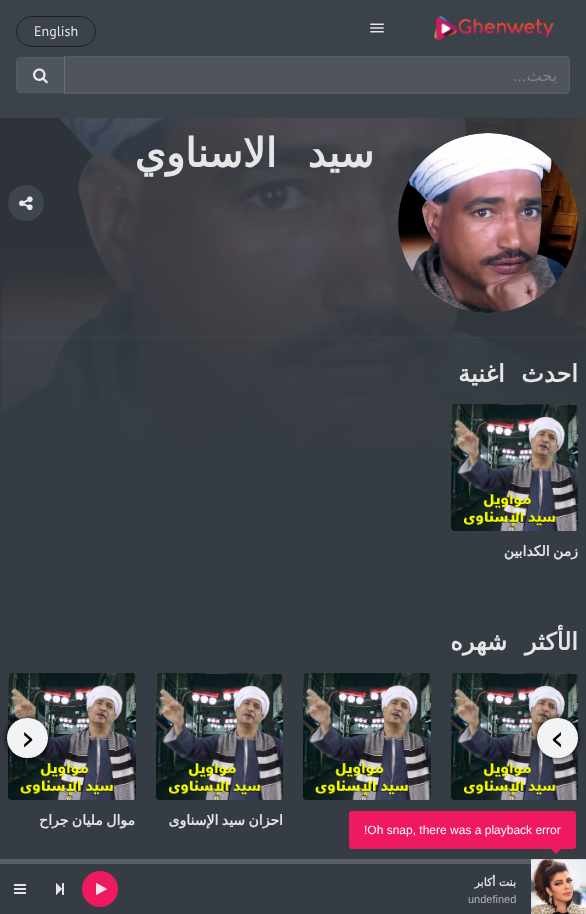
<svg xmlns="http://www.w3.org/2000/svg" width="586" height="914">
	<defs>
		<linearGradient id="g1" gradientUnits="userSpaceOnUse" x1="293" y1="229" x2="293" y2="457"><stop offset="0" stop-color="#363C43" stop-opacity="0" /><stop offset="1" stop-color="#363C43" /></linearGradient>
	</defs>
	<rect width="100%" height="100%" fill="#363C43" />
	<rect x="0" y="0" width="586" height="118" fill="#3C424A" />
	<image x="434" y="16" width="120" height="24" href="assets/img1.png" />
	<image x="370" y="23" width="14" height="10" href="assets/img2.png" />
	<rect x="16.5" y="16.5" width="79" height="30" rx="15" fill="none" stroke="#1C202B" />
	<text x="34" y="36" font-family="PT Sans" font-size="14" fill="#E6E6E7">English</text>
	<path d="M64 56H566C568 56 570 58 570 60V90C570 92 568 94 566 94H64Z" fill="#50555C" />
	<path d="M64.5 56.5H566C568 56.5 569.5 58 569.5 60V90C569.5 92 568 93.5 566 93.5H64.5Z" fill="none" stroke="#78828C" stroke-opacity="0.2" />
	<text x="557" y="81" font-family="DejaVu Sans" font-size="16" direction="rtl" fill="#7E8187">بحث</text>
	<text x="526" y="81" font-family="PT Sans" font-size="16" direction="rtl" fill="#7E8187">...</text>
	<path d="M20 57H65V93H20C18 93 16 91 16 89V61C16 59 18 57 20 57Z" fill="#FFFFFF" fill-opacity="0.1" />
	<path d="M20 57.5H64.5V92.5H20C18 92.5 16.5 91 16.5 89V61C16.5 59 18 57.5 20 57.5Z" fill="none" stroke="#78828C" stroke-opacity="0.13" />
	<image x="33" y="68" width="15" height="16" href="assets/img3.png" />
	<image x="0" y="118" width="586" height="338" href="assets/img4.png" />
	<rect x="0" y="247" width="586" height="209" fill="url(#g1)" />
	<rect x="0" y="337" width="586" height="1" fill="#78828C" fill-opacity="0.13" />
	<circle cx="488" cy="223" r="90" fill="#787878" fill-opacity="0.2" />
	<image x="398" y="133" width="180" height="180" href="assets/img5.png" />
	<text x="374" y="167" word-spacing="18" font-family="DejaVu Sans" font-size="40" font-weight="700" letter-spacing="-1.6" direction="rtl" fill="#E6E6E7">سيد الاسناوي</text>
	<circle cx="26" cy="203" r="18" fill="#3E454D" />
	<image x="19" y="196" width="14" height="15" href="assets/img6.png" />
	<text x="578" y="382" word-spacing="9" font-family="DejaVu Sans" font-size="24" font-weight="700" letter-spacing="-1" direction="rtl" fill="#E6E6E7">احدث اغنية</text>
	<rect x="451" y="404" width="127" height="127" rx="3" fill="#787878" fill-opacity="0.2" />
	<image x="451" y="404" width="127" height="127" href="assets/img7.png" />
	<text x="578" y="556" word-spacing="-1" font-family="DejaVu Sans" font-size="14" font-weight="700" direction="rtl" fill="#E6E6E7">زمن الكدابين</text>
	<text x="578" y="650" word-spacing="10" font-family="DejaVu Sans" font-size="24" font-weight="700" letter-spacing="-1" direction="rtl" fill="#E6E6E7">الأكثر شهره</text>
	<rect x="451" y="673" width="127" height="127" rx="3" fill="#43484E" />
	<image x="451" y="673" width="127" height="127" href="assets/img8.png" />
	<rect x="537" y="718" width="41" height="40" rx="20" fill="#000000" filter="blur(3px)" />
	<rect x="537" y="718" width="41" height="40" rx="20" fill="#F2F3F5" />
	<text x="547" y="750" font-family="DejaVu Sans Mono" font-size="35" fill="#000000">‹</text>
	<rect x="8" y="673" width="128" height="127" rx="3" fill="#43484E" />
	<image x="8" y="673" width="128" height="127" href="assets/img9.png" />
	<rect x="7" y="718" width="41" height="40" rx="20" fill="#000000" filter="blur(3px)" />
	<rect x="7" y="718" width="41" height="40" rx="20" fill="#F2F3F5" />
	<text x="17" y="750" font-family="DejaVu Sans Mono" font-size="35" fill="#000000">›</text>
	<rect x="303" y="673" width="128" height="127" rx="3" fill="#43484E" />
	<image x="303" y="673" width="128" height="127" href="assets/img9.png" />
	<rect x="156" y="673" width="127" height="127" rx="3" fill="#43484E" />
	<image x="156" y="673" width="127" height="127" href="assets/img8.png" />
	<g font-family="DejaVu Sans" font-size="14" font-weight="700" direction="rtl" fill="#E6E6E7">
		<text x="283" y="825" word-spacing="-1">احزان سيد الإسناوى</text>
		<text x="135" y="825" word-spacing="-1">موال مليان جراح</text>
	</g>
	<rect x="349" y="811" width="227" height="38" rx="3" fill="#EF1960" />
	<text x="364" y="834" font-family="Liberation Sans" font-size="12" fill="#FFFFFF">!Oh snap, there was a playback error</text>
	<path d="M551 849H561L556 854Z" fill="#EF1960" />
	<image x="531" y="859" width="55" height="55" href="assets/img10.png" />
	<text x="516" y="886" font-family="DejaVu Sans" font-size="11" font-weight="700" direction="rtl" fill="#E6E6E7">بنت أكابر</text>
	<text x="468" y="903" font-family="Liberation Sans" font-size="11" fill="#B1B3B6">undefined</text>
	<rect x="0" y="859" width="531" height="5" fill="#595E64" />
	<circle cx="100" cy="889" r="18" fill="#EF1960" />
	<image x="96" y="883" width="11" height="12" href="assets/img11.png" />
	<image x="56" y="883" width="8" height="12" href="assets/img12.png" />
	<image x="14" y="884" width="12" height="10" href="assets/img13.png" />
</svg>
